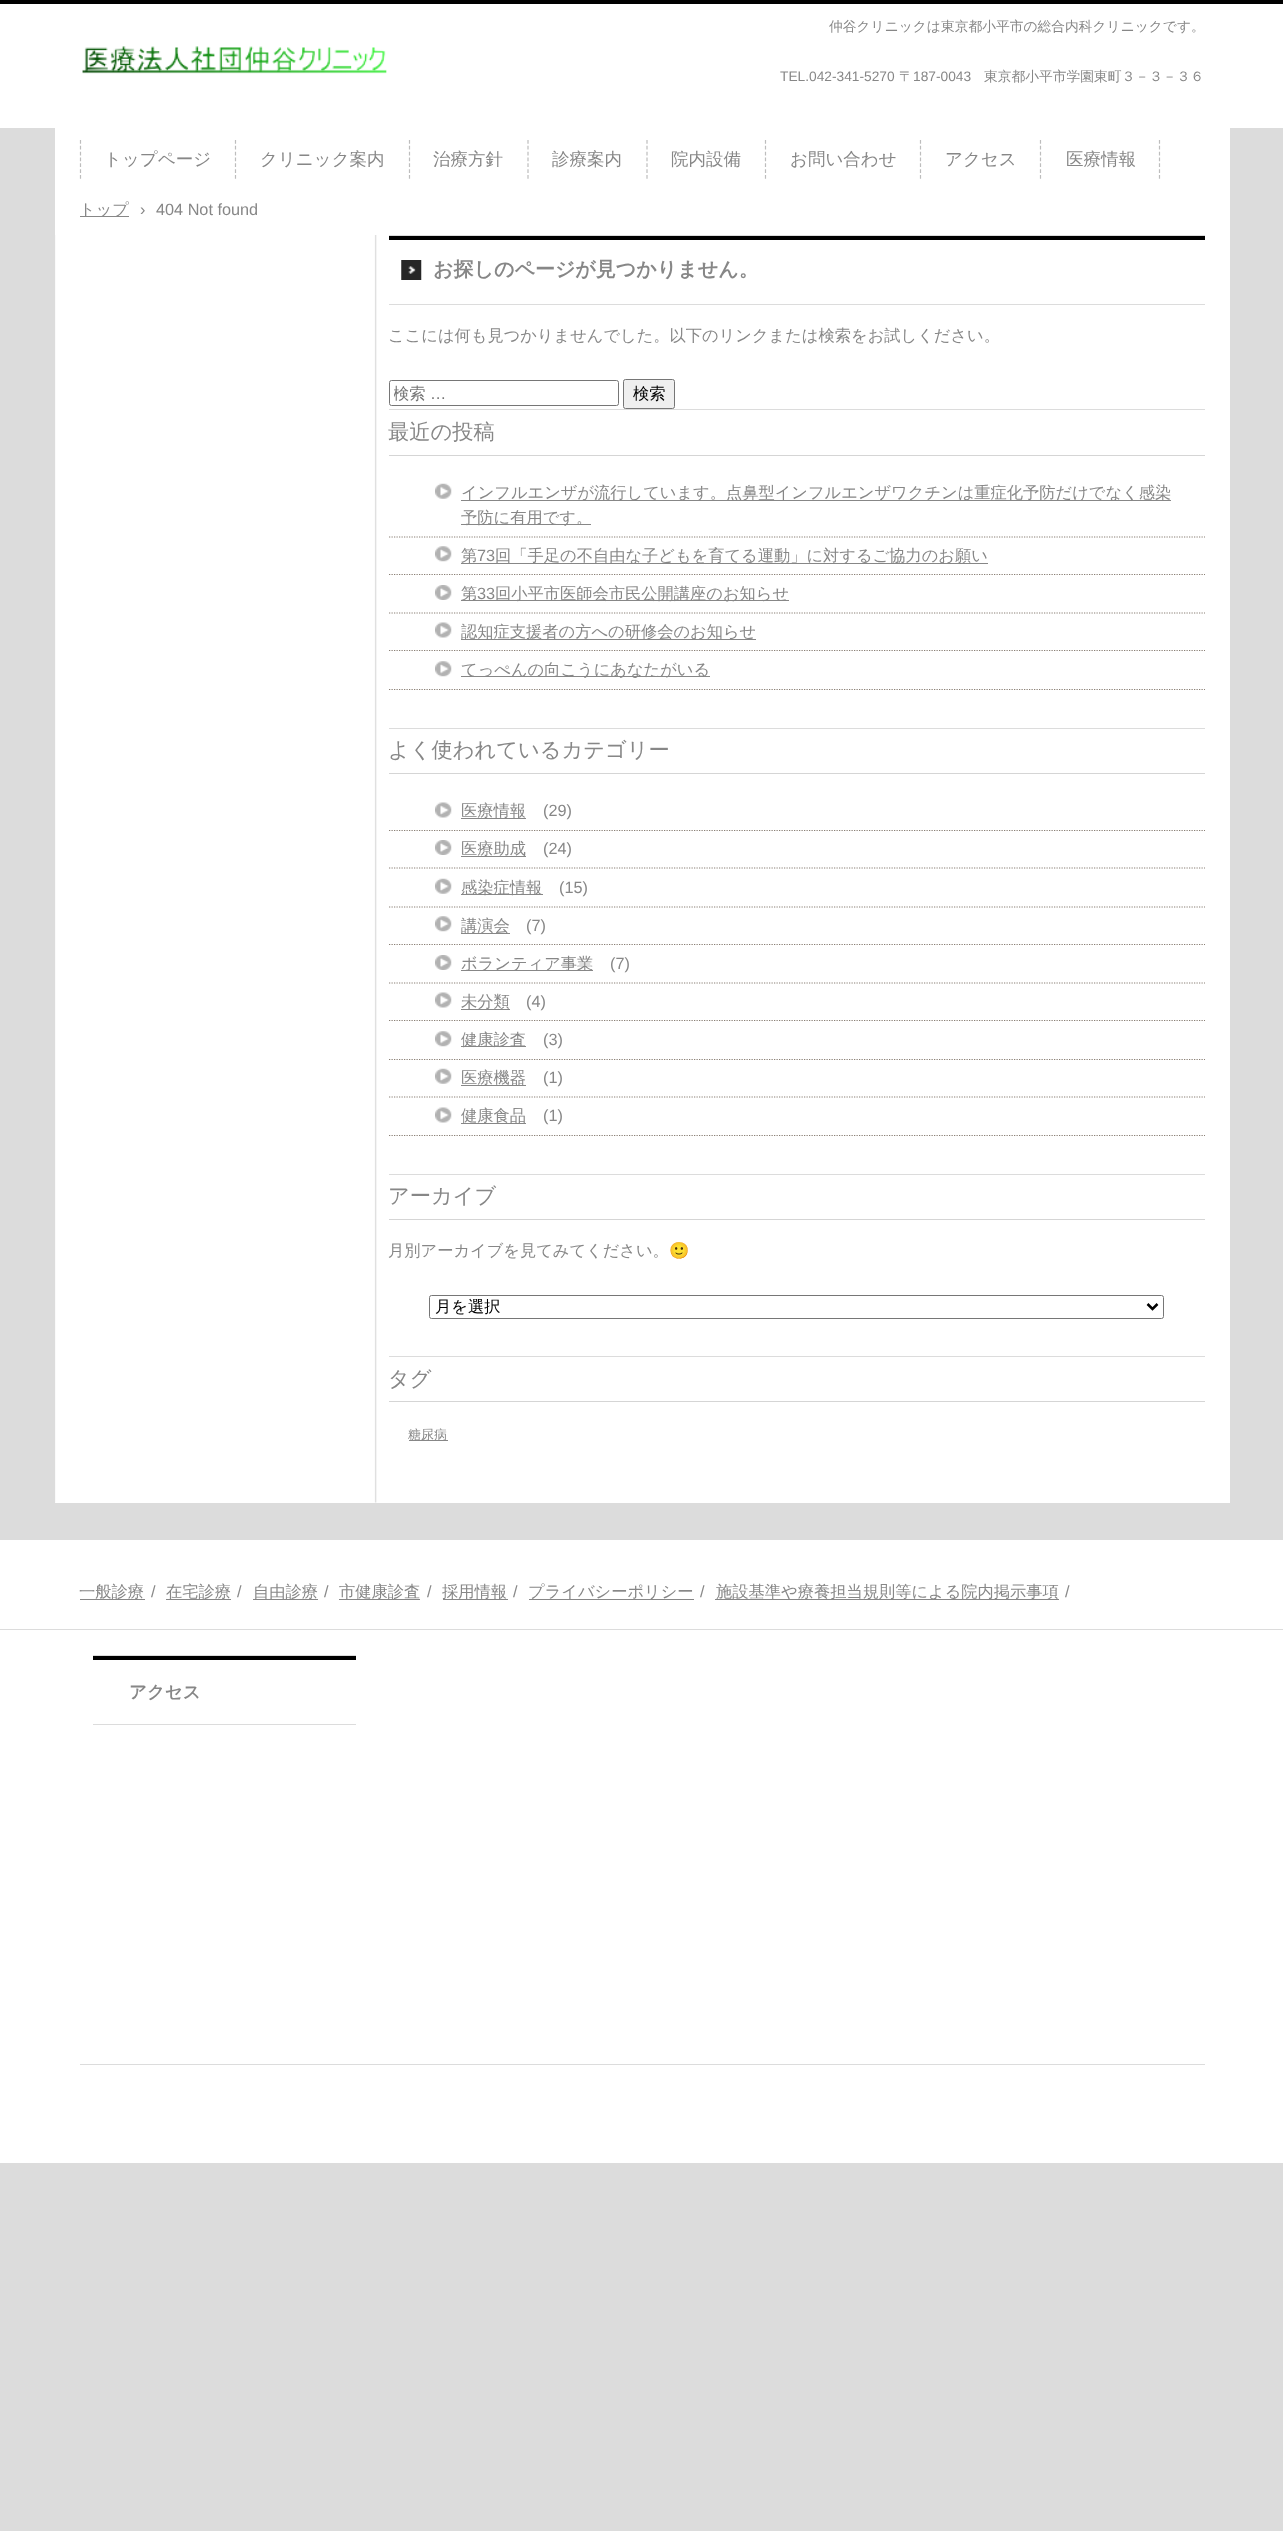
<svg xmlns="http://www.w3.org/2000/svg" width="1283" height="2531">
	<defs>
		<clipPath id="clip1"><rect x="394" y="383" width="215" height="21" /></clipPath>
	</defs>
	<rect width="100%" height="100%" fill="#DCDCDC" />
	<rect x="0" y="0" width="1283" height="4" fill="#000000" />
	<rect x="0" y="4" width="1283" height="124" fill="#FFFFFF" />
	<text x="829" y="31" font-family="WenQuanYi Zen Hei" font-size="13.75" font-weight="500" fill="#878787">仲谷クリニックは東京都小平市の総合内科クリニックです。</text>
	<image x="82" y="46" width="305" height="28" href="assets/img1.png" />
	<text x="780" y="81" font-family="Liberation Sans" font-size="13.75" fill="#878787">TEL.042-341-5270</text>
	<text x="899" y="81" font-family="WenQuanYi Zen Hei" font-size="13.75" font-weight="500" fill="#878787">〒</text>
	<text x="913" y="81" font-family="Liberation Sans" font-size="13.75" fill="#878787">187-0043</text>
	<text x="984" y="81" font-family="WenQuanYi Zen Hei" font-size="13.75" font-weight="500" fill="#878787">東京都小平市学園東町３－３－３６</text>
	<rect x="55" y="128" width="1175" height="107" fill="#FFFFFF" />
	<path d="M235.5 140V179" fill="none" stroke="#BDBDBD" stroke-width="1.2" stroke-dasharray="3.75 2.09" />
	<path d="M80.5 140V179" fill="none" stroke="#BDBDBD" stroke-width="1.2" stroke-dasharray="3.75 2.09" />
	<text x="104" y="165" font-family="WenQuanYi Zen Hei" font-size="17.5" font-weight="500" fill="#878787">トップページ</text>
	<path d="M409.5 140V179" fill="none" stroke="#BDBDBD" stroke-width="1.2" stroke-dasharray="3.75 2.09" />
	<text x="260" y="165" font-family="WenQuanYi Zen Hei" font-size="17.5" font-weight="500" fill="#878787">クリニック案内</text>
	<path d="M528 140V179" fill="none" stroke="#BDBDBD" stroke-width="1.2" stroke-dasharray="3.75 2.09" />
	<text x="433" y="165" font-family="WenQuanYi Zen Hei" font-size="17.5" font-weight="500" fill="#878787">治療方針</text>
	<path d="M647 140V179" fill="none" stroke="#BDBDBD" stroke-width="1.2" stroke-dasharray="3.75 2.09" />
	<text x="552" y="165" font-family="WenQuanYi Zen Hei" font-size="17.5" font-weight="500" fill="#878787">診療案内</text>
	<path d="M765.5 140V179" fill="none" stroke="#BDBDBD" stroke-width="1.2" stroke-dasharray="3.75 2.09" />
	<text x="671" y="165" font-family="WenQuanYi Zen Hei" font-size="17.5" font-weight="500" fill="#878787">院内設備</text>
	<path d="M920.5 140V179" fill="none" stroke="#BDBDBD" stroke-width="1.2" stroke-dasharray="3.75 2.09" />
	<text x="790" y="165" font-family="WenQuanYi Zen Hei" font-size="17.5" font-weight="500" fill="#878787">お問い合わせ</text>
	<path d="M1040.5 140V179" fill="none" stroke="#BDBDBD" stroke-width="1.2" stroke-dasharray="3.75 2.09" />
	<text x="945" y="165" font-family="WenQuanYi Zen Hei" font-size="17.5" font-weight="500" fill="#878787">アクセス</text>
	<path d="M1159.5 140V179" fill="none" stroke="#BDBDBD" stroke-width="1.2" stroke-dasharray="3.75 2.09" />
	<text x="1066" y="165" font-family="WenQuanYi Zen Hei" font-size="17.5" font-weight="500" fill="#878787">医療情報</text>
	<rect x="80" y="216" width="49" height="1" fill="#878787" />
	<text x="79" y="215" font-family="WenQuanYi Zen Hei" font-size="16.25" font-weight="500" fill="#878787">トップ</text>
	<g font-family="Liberation Sans" font-size="16.25" fill="#878787">
		<text x="140" y="215">›</text>
		<text x="156" y="215">404 Not found</text>
	</g>
	<rect x="55" y="235" width="1175" height="1268" fill="#FFFFFF" />
	<image x="55" y="235" width="322" height="1268" href="assets/img2.png" />
	<image x="401" y="260" width="21" height="20" href="assets/img3.png" />
	<rect x="389" y="236" width="816" height="4" fill="#000000" />
	<rect x="389" y="235" width="816" height="1" fill="#DCDCDC" />
	<rect x="389" y="304" width="816" height="1" fill="#DCDCDC" />
	<text x="433" y="276" font-family="WenQuanYi Zen Hei" font-size="20" font-weight="700" fill="#878787">お探しのページが見つかりません。</text>
	<text x="388" y="341" font-family="WenQuanYi Zen Hei" font-size="16.25" font-weight="500" fill="#878787">ここには何も見つかりませんでした。以下のリンクまたは検索をお試しください。</text>
	<rect x="389.5" y="380.5" width="229" height="25" rx="2" fill="none" stroke="#767676" />
	<g clip-path="url(#clip1)">
		<text x="393" y="399" font-family="WenQuanYi Zen Hei" font-size="16.25" font-weight="500" fill="#757575">検索</text>
	</g>
	<text x="430" y="399" font-family="Liberation Sans" font-size="16.25" fill="#757575">…</text>
	<rect x="623.5" y="379.5" width="51" height="29" rx="2" fill="#EFEFEF" stroke="#767676" />
	<text x="633" y="399" font-family="WenQuanYi Zen Hei" font-size="16.25" font-weight="500" fill="#000000">検索</text>
	<rect x="389" y="409" width="816" height="1" fill="#DCDCDC" />
	<rect x="389" y="455" width="816" height="1" fill="#D5D5D5" />
	<text x="388" y="439" font-family="WenQuanYi Zen Hei" font-size="21.25" font-weight="500" fill="#878787">最近の投稿</text>
	<image x="435" y="483" width="17" height="16" href="assets/img4.png" />
	<rect x="461" y="500" width="710" height="1" fill="#878787" />
	<text x="461" y="498" font-family="WenQuanYi Zen Hei" font-size="16.25" font-weight="500" fill="#878787">インフルエンザが流行しています。点鼻型インフルエンザワクチンは重症化予防だけでなく感染</text>
	<rect x="461" y="524" width="130" height="1" fill="#878787" />
	<text x="461" y="523" font-family="WenQuanYi Zen Hei" font-size="16.25" font-weight="500" fill="#878787">予防に有用です。</text>
	<path d="M389 537H1205" fill="none" stroke="#8A8076" stroke-width="1.2" stroke-dasharray="1.25 1.25" />
	<image x="435" y="546" width="17" height="16" href="assets/img5.png" />
	<rect x="461" y="563" width="527" height="1" fill="#878787" />
	<text x="461" y="561" font-family="WenQuanYi Zen Hei" font-size="16.25" font-weight="500" fill="#878787">第</text>
	<text x="477" y="561" font-family="Liberation Sans" font-size="16.25" fill="#878787">73</text>
	<text x="495" y="561" font-family="WenQuanYi Zen Hei" font-size="16.25" font-weight="500" fill="#878787">回「手足の不自由な子どもを育てる運動」に対するご協力のお願い</text>
	<path d="M389 574.5H1205" fill="none" stroke="#8A8076" stroke-width="1.2" stroke-dasharray="1.25 1.25" />
	<image x="435" y="585" width="17" height="15" href="assets/img6.png" />
	<rect x="461" y="600" width="328" height="1" fill="#878787" />
	<text x="461" y="599" font-family="WenQuanYi Zen Hei" font-size="16.25" font-weight="500" fill="#878787">第</text>
	<text x="477" y="599" font-family="Liberation Sans" font-size="16.25" fill="#878787">33</text>
	<text x="495" y="599" font-family="WenQuanYi Zen Hei" font-size="16.25" font-weight="500" fill="#878787">回小平市医師会市民公開講座のお知らせ</text>
	<path d="M389 613H1205" fill="none" stroke="#8A8076" stroke-width="1.2" stroke-dasharray="1.25 1.25" />
	<image x="435" y="622" width="17" height="16" href="assets/img7.png" />
	<rect x="461" y="639" width="295" height="1" fill="#878787" />
	<text x="461" y="637" font-family="WenQuanYi Zen Hei" font-size="16.25" font-weight="500" fill="#878787">認知症支援者の方への研修会のお知らせ</text>
	<path d="M389 650.5H1205" fill="none" stroke="#8A8076" stroke-width="1.2" stroke-dasharray="1.25 1.25" />
	<path d="M389 689.5H1205" fill="none" stroke="#8A8076" stroke-width="1.2" stroke-dasharray="1.25 1.25" />
	<image x="435" y="661" width="17" height="16" href="assets/img5.png" />
	<rect x="461" y="676" width="249" height="1" fill="#878787" />
	<text x="461" y="675" font-family="WenQuanYi Zen Hei" font-size="16.25" font-weight="500" fill="#878787">てっぺんの向こうにあなたがいる</text>
	<rect x="389" y="728" width="816" height="1" fill="#DCDCDC" />
	<rect x="389" y="773" width="816" height="1" fill="#D5D5D5" />
	<text x="388" y="757" font-family="WenQuanYi Zen Hei" font-size="21.25" font-weight="500" fill="#878787">よく使われているカテゴリー</text>
	<image x="435" y="802" width="17" height="16" href="assets/img7.png" />
	<rect x="461" y="818" width="65" height="1" fill="#878787" />
	<text x="461" y="816" font-family="WenQuanYi Zen Hei" font-size="16.25" font-weight="500" fill="#878787">医療情報</text>
	<text x="543" y="816" font-family="Liberation Sans" font-size="16.25" fill="#878787">(29)</text>
	<path d="M389 830.5H1205" fill="none" stroke="#8A8076" stroke-width="1.2" stroke-dasharray="1.25 1.25" />
	<image x="435" y="840" width="17" height="15" href="assets/img8.png" />
	<text x="461" y="854" font-family="WenQuanYi Zen Hei" font-size="16.25" font-weight="500" fill="#878787">医療助成</text>
	<rect x="461" y="856" width="65" height="1" fill="#878787" />
	<text x="543" y="854" font-family="Liberation Sans" font-size="16.25" fill="#878787">(24)</text>
	<path d="M389 868H1205" fill="none" stroke="#8A8076" stroke-width="1.2" stroke-dasharray="1.25 1.25" />
	<image x="435" y="878" width="17" height="16" href="assets/img4.png" />
	<rect x="461" y="894" width="82" height="1" fill="#878787" />
	<text x="461" y="893" font-family="WenQuanYi Zen Hei" font-size="16.25" font-weight="500" fill="#878787">感染症情報</text>
	<text x="559" y="893" font-family="Liberation Sans" font-size="16.25" fill="#878787">(15)</text>
	<path d="M389 907H1205" fill="none" stroke="#8A8076" stroke-width="1.2" stroke-dasharray="1.25 1.25" />
	<image x="435" y="916" width="17" height="16" href="assets/img5.png" />
	<rect x="461" y="933" width="49" height="1" fill="#878787" />
	<text x="461" y="931" font-family="WenQuanYi Zen Hei" font-size="16.25" font-weight="500" fill="#878787">講演会</text>
	<text x="526" y="931" font-family="Liberation Sans" font-size="16.25" fill="#878787">(7)</text>
	<path d="M389 944.5H1205" fill="none" stroke="#8A8076" stroke-width="1.2" stroke-dasharray="1.25 1.25" />
	<image x="435" y="955" width="17" height="15" href="assets/img8.png" />
	<rect x="461" y="970" width="132" height="1" fill="#878787" />
	<text x="461" y="969" font-family="WenQuanYi Zen Hei" font-size="16.25" font-weight="500" fill="#878787">ボランティア事業</text>
	<text x="610" y="969" font-family="Liberation Sans" font-size="16.25" fill="#878787">(7)</text>
	<path d="M389 983H1205" fill="none" stroke="#8A8076" stroke-width="1.2" stroke-dasharray="1.25 1.25" />
	<image x="435" y="992" width="17" height="16" href="assets/img7.png" />
	<rect x="461" y="1009" width="49" height="1" fill="#878787" />
	<text x="461" y="1007" font-family="WenQuanYi Zen Hei" font-size="16.25" font-weight="500" fill="#878787">未分類</text>
	<text x="526" y="1007" font-family="Liberation Sans" font-size="16.25" fill="#878787">(4)</text>
	<path d="M389 1020.5H1205" fill="none" stroke="#8A8076" stroke-width="1.2" stroke-dasharray="1.25 1.25" />
	<image x="435" y="1031" width="17" height="16" href="assets/img5.png" />
	<rect x="461" y="1046" width="65" height="1" fill="#878787" />
	<text x="461" y="1045" font-family="WenQuanYi Zen Hei" font-size="16.25" font-weight="500" fill="#878787">健康診査</text>
	<text x="543" y="1045" font-family="Liberation Sans" font-size="16.25" fill="#878787">(3)</text>
	<path d="M389 1059.5H1205" fill="none" stroke="#8A8076" stroke-width="1.2" stroke-dasharray="1.25 1.25" />
	<image x="435" y="1068" width="17" height="16" href="assets/img4.png" />
	<text x="461" y="1083" font-family="WenQuanYi Zen Hei" font-size="16.25" font-weight="500" fill="#878787">医療機器</text>
	<rect x="461" y="1085" width="65" height="1" fill="#878787" />
	<text x="543" y="1083" font-family="Liberation Sans" font-size="16.25" fill="#878787">(1)</text>
	<path d="M389 1097H1205" fill="none" stroke="#8A8076" stroke-width="1.2" stroke-dasharray="1.25 1.25" />
	<path d="M389 1135.5H1205" fill="none" stroke="#8A8076" stroke-width="1.2" stroke-dasharray="1.25 1.25" />
	<image x="435" y="1107" width="17" height="16" href="assets/img7.png" />
	<rect x="461" y="1123" width="65" height="1" fill="#878787" />
	<text x="461" y="1121" font-family="WenQuanYi Zen Hei" font-size="16.25" font-weight="500" fill="#878787">健康食品</text>
	<text x="543" y="1121" font-family="Liberation Sans" font-size="16.25" fill="#878787">(1)</text>
	<rect x="389" y="1174" width="816" height="1" fill="#DCDCDC" />
	<rect x="389" y="1219" width="816" height="1" fill="#D5D5D5" />
	<text x="388" y="1203" font-family="WenQuanYi Zen Hei" font-size="21.25" font-weight="500" fill="#878787">アーカイブ</text>
	<text x="388" y="1256" font-family="WenQuanYi Zen Hei" font-size="16.25" font-weight="500" fill="#878787">月別アーカイブを見てみてください。</text>
	<text x="669" y="1256" font-family="Noto Color Emoji" font-size="16.25" fill="#878787">🙂</text>
	<rect x="429.5" y="1295.5" width="734" height="23" rx="2" fill="none" stroke="#767676" />
	<path d="M1147.5 1304L1152.5 1309L1157.5 1304" fill="none" stroke="#000000" stroke-width="2.5" />
	<text x="435" y="1312" font-family="WenQuanYi Zen Hei" font-size="16.25" font-weight="500" fill="#000000">月を選択</text>
	<rect x="389" y="1356" width="816" height="1" fill="#DCDCDC" />
	<rect x="389" y="1401" width="816" height="1" fill="#D5D5D5" />
	<text x="388" y="1386" font-family="WenQuanYi Zen Hei" font-size="21.25" font-weight="500" fill="#878787">タグ</text>
	<rect x="409" y="1440" width="39" height="1" fill="#878787" />
	<text x="408" y="1439" font-family="WenQuanYi Zen Hei" font-size="13" font-weight="500" fill="#878787">糖尿病</text>
	<rect x="0" y="1540" width="1283" height="623" fill="#FFFFFF" />
	<rect x="0" y="1629" width="1283" height="1" fill="#DCDCDC" />
	<rect x="80" y="1599" width="65" height="1" fill="#878787" />
	<text x="79" y="1597" font-family="WenQuanYi Zen Hei" font-size="16.25" font-weight="500" fill="#878787">一般診療</text>
	<text x="151" y="1597" font-family="Liberation Sans" font-size="16.25" fill="#878787">/</text>
	<rect x="166" y="1599" width="65" height="1" fill="#878787" />
	<text x="166" y="1597" font-family="WenQuanYi Zen Hei" font-size="16.25" font-weight="500" fill="#878787">在宅診療</text>
	<text x="237" y="1597" font-family="Liberation Sans" font-size="16.25" fill="#878787">/</text>
	<rect x="253" y="1599" width="65" height="1" fill="#878787" />
	<text x="253" y="1597" font-family="WenQuanYi Zen Hei" font-size="16.25" font-weight="500" fill="#878787">自由診療</text>
	<text x="324" y="1597" font-family="Liberation Sans" font-size="16.25" fill="#878787">/</text>
	<rect x="339" y="1599" width="81" height="1" fill="#878787" />
	<text x="339" y="1597" font-family="WenQuanYi Zen Hei" font-size="16.25" font-weight="500" fill="#878787">市健康診査</text>
	<text x="427" y="1597" font-family="Liberation Sans" font-size="16.25" fill="#878787">/</text>
	<rect x="443" y="1599" width="65" height="1" fill="#878787" />
	<text x="442" y="1597" font-family="WenQuanYi Zen Hei" font-size="16.25" font-weight="500" fill="#878787">採用情報</text>
	<text x="513" y="1597" font-family="Liberation Sans" font-size="16.25" fill="#878787">/</text>
	<rect x="529" y="1599" width="165" height="1" fill="#878787" />
	<text x="528" y="1597" font-family="WenQuanYi Zen Hei" font-size="16.25" font-weight="500" fill="#878787">プライバシーポリシー</text>
	<text x="700" y="1597" font-family="Liberation Sans" font-size="16.25" fill="#878787">/</text>
	<rect x="715" y="1599" width="344" height="1" fill="#878787" />
	<text x="716" y="1597" font-family="WenQuanYi Zen Hei" font-size="16.25" font-weight="500" fill="#878787">施設基準や療養担当規則等による院内掲示事項</text>
	<text x="1065" y="1597" font-family="Liberation Sans" font-size="16.25" fill="#878787">/</text>
	<rect x="80" y="2064" width="1125" height="1" fill="#DCDCDC" />
	<rect x="93" y="1655" width="263" height="1" fill="#DCDCDC" />
	<rect x="93" y="1656" width="263" height="4" fill="#000000" />
	<rect x="93" y="1724" width="263" height="1" fill="#DCDCDC" />
	<text x="129" y="1698" font-family="WenQuanYi Zen Hei" font-size="17.5" font-weight="700" fill="#878787">アクセス</text>
</svg>
